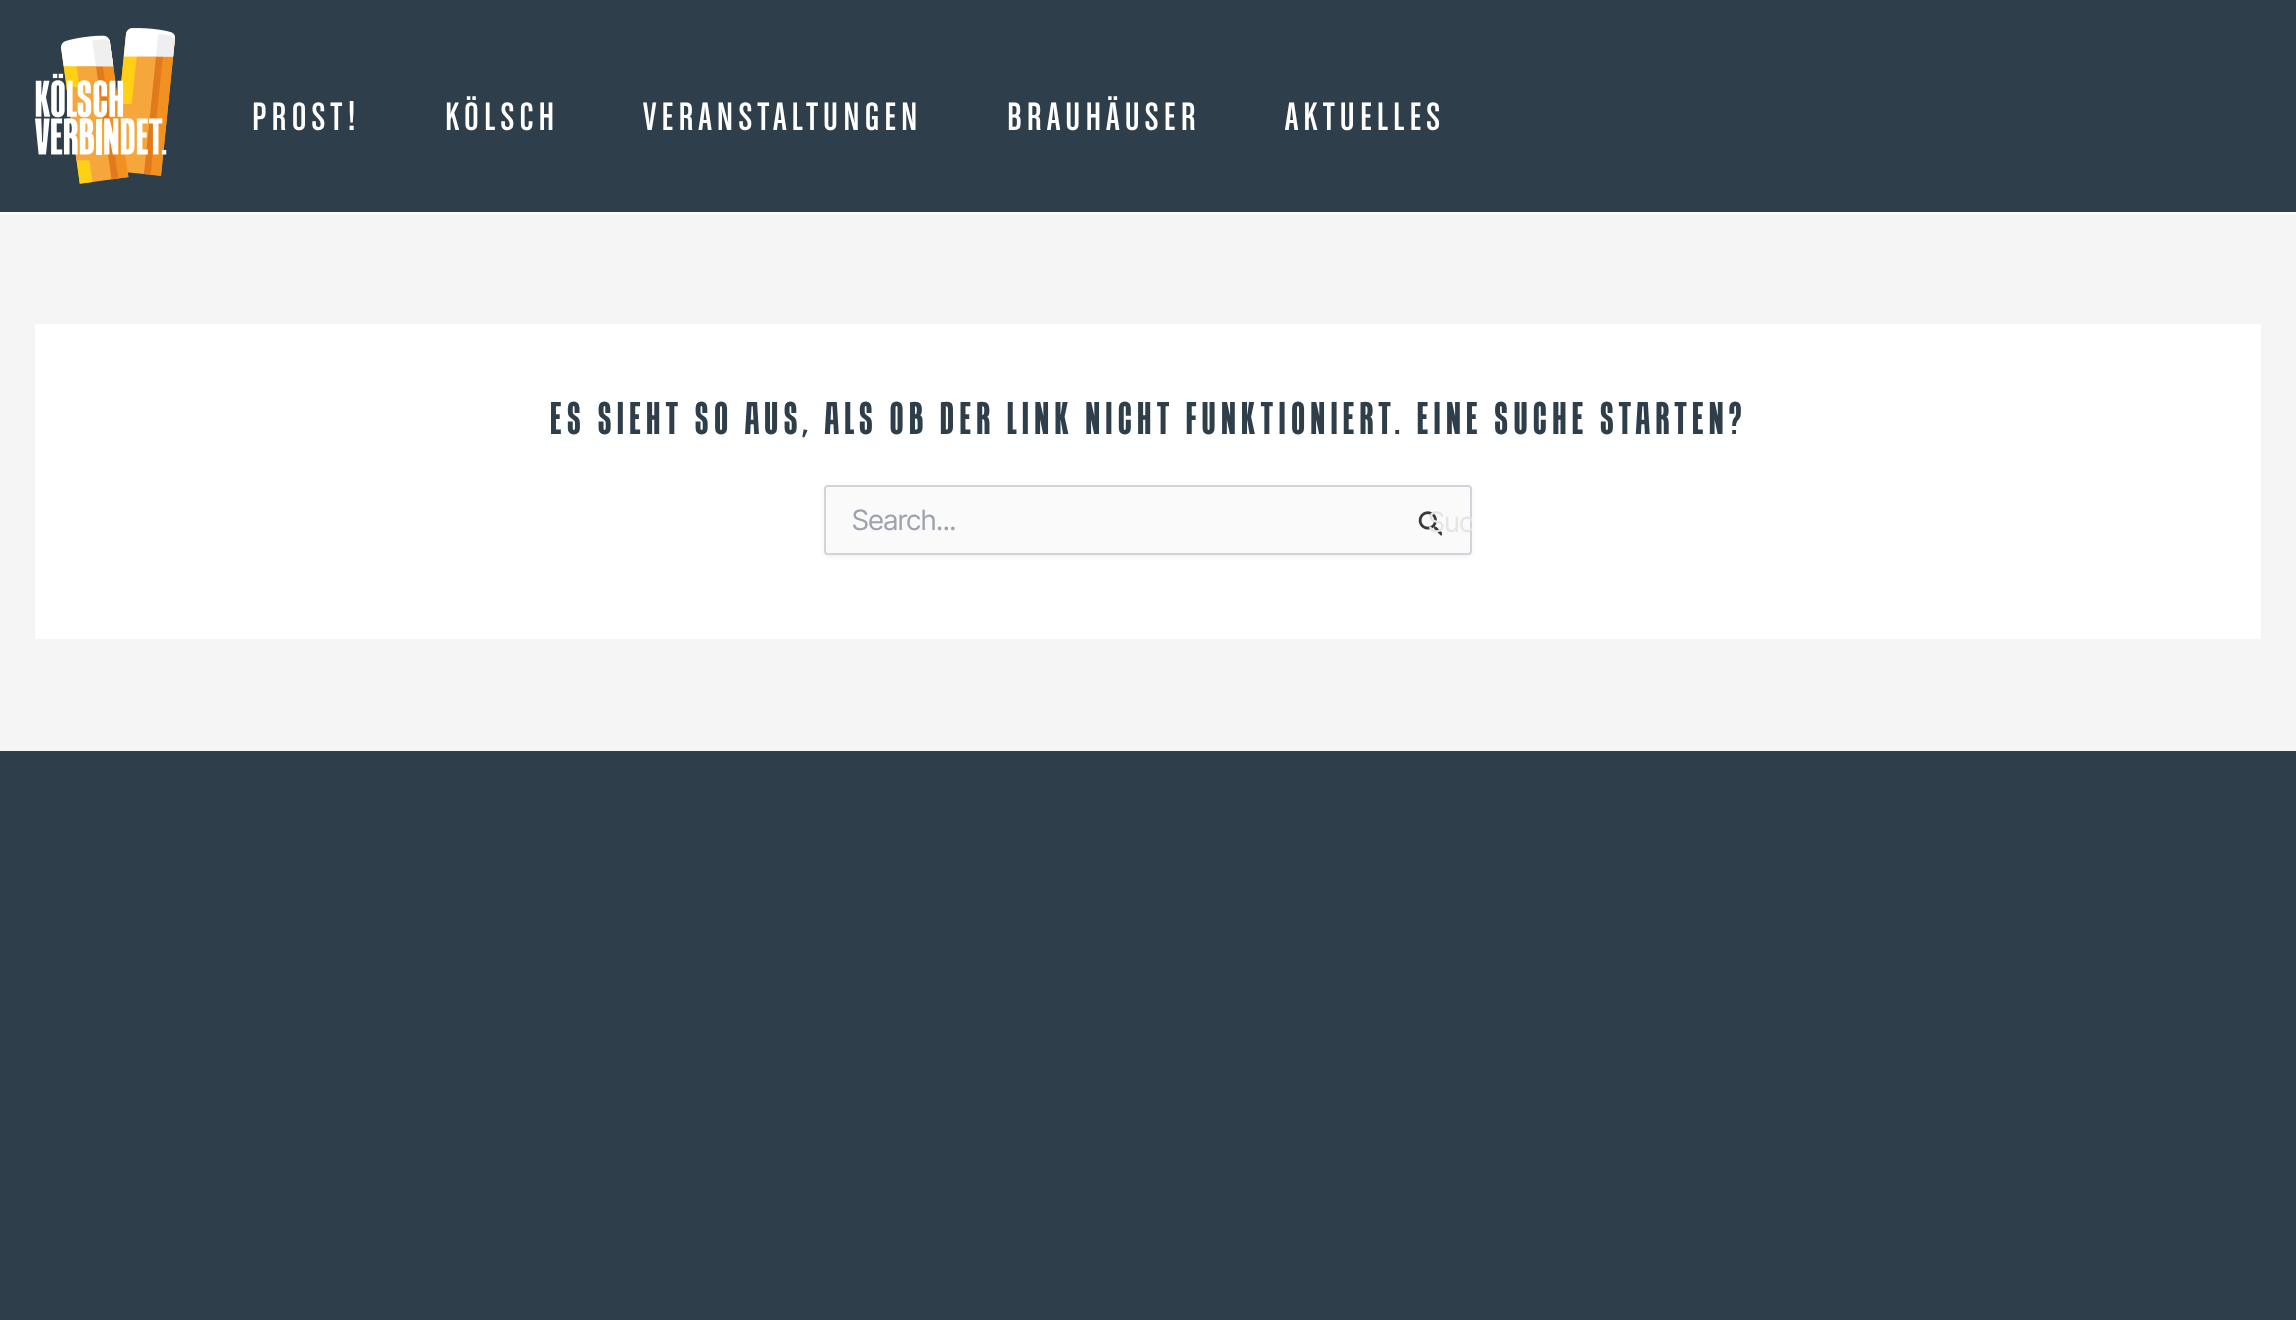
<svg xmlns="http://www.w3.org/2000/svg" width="2296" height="1320">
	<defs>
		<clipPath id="clip1"><rect x="1393" y="485" width="79" height="73" rx="4" /></clipPath>
	</defs>
	<rect width="100%" height="100%" fill="#F5F5F5" />
	<rect x="0" y="212" width="2296" height="2" fill="#FFFFFF" />
	<rect x="0" y="0" width="2296" height="212" fill="#2F3E4B" />
	<image x="35" y="28" width="140" height="156" href="assets/img1.png" />
	<g font-family="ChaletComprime" font-size="42" letter-spacing="5.25" fill="#FFFFFF">
		<text x="252" y="130">PROST!</text>
		<text x="445" y="130">KÖLSCH</text>
		<text x="643" y="130">VERANSTALTUNGEN</text>
		<text x="1007" y="130">BRAUHÄUSER</text>
		<text x="1285" y="130">AKTUELLES</text>
	</g>
	<rect x="35" y="324" width="2226" height="315" fill="#FFFFFF" />
	<text x="550" y="434" font-family="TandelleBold" font-size="42" font-weight="700" letter-spacing="5.25" fill="#2F3E4B">ES SIEHT SO AUS, ALS OB DER LINK NICHT FUNKTIONIERT. EINE SUCHE STARTEN?</text>
	<rect x="824" y="487" width="648" height="70" rx="4" fill="#000000" fill-opacity="0.05" filter="blur(2px)" />
	<rect x="825" y="486" width="646" height="68" rx="3" fill="#FAFAFA" stroke="#D1D5DB" stroke-width="2" />
	<text x="852" y="530" font-family="Inter Tight" font-size="28" fill="#9CA3AF">Search...</text>
	<image x="1418" y="511" width="24" height="25" href="assets/img2.png" />
	<g clip-path="url(#clip1)">
		<text x="1428" y="532" font-family="Inter Tight" font-size="28" fill="#E4E5E5">Suc</text>
	</g>
	<rect x="0" y="751" width="2296" height="569" fill="#2F3E4B" />
</svg>
